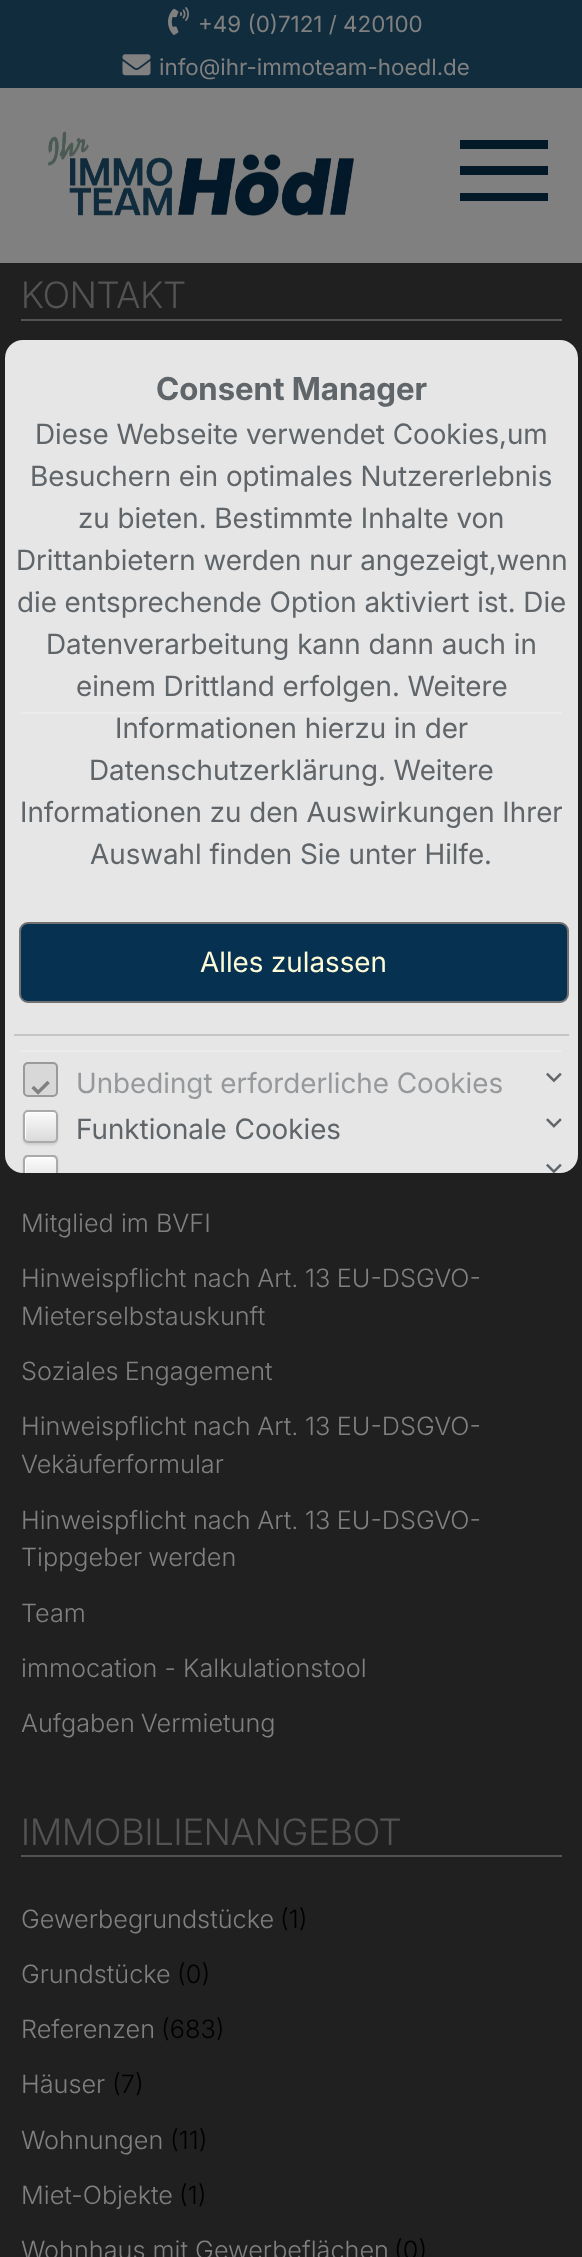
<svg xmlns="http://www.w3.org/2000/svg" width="582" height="2257">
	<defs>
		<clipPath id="clip1"><rect x="23" y="1110" width="35" height="33" rx="5" /></clipPath>
		<linearGradient id="g1" gradientUnits="userSpaceOnUse" x1="40" y1="1111" x2="40" y2="1141"><stop offset="0" stop-color="#FCFCFC" /><stop offset="1" stop-color="#DADADA" /></linearGradient>
		<clipPath id="clip2"><rect x="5" y="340" width="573" height="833" rx="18" /></clipPath>
		<clipPath id="clip3"><rect x="23" y="1155" width="35" height="33" rx="5" /></clipPath>
		<linearGradient id="g2" gradientUnits="userSpaceOnUse" x1="40" y1="1157" x2="40" y2="1187"><stop offset="0" stop-color="#FCFCFC" /><stop offset="1" stop-color="#DADADA" /></linearGradient>
	</defs>
	<rect width="100%" height="100%" fill="#202020" />
	<rect x="0" y="88" width="582" height="175" fill="#808080" />
	<rect x="0" y="0" width="582" height="88" fill="#112C3D" />
	<image x="168" y="7" width="21" height="28" href="assets/img1.png" />
	<text x="198" y="32" font-family="Inter" font-size="22.4" fill="#808080">+49 (0)7121 / 420100</text>
	<image x="122" y="54" width="29" height="22" href="assets/img2.png" />
	<text x="159" y="75" font-family="Inter" font-size="22.4" fill="#808080">info@ihr-immoteam-hoedl.de</text>
	<image x="47" y="131" width="307" height="85" href="assets/img3.png" />
	<rect x="460" y="166" width="88" height="9" fill="#041928" />
	<rect x="460" y="140" width="88" height="9" fill="#041928" />
	<rect x="460" y="193" width="88" height="8" fill="#041928" />
	<rect x="21" y="319" width="541" height="2" fill="#535353" />
	<text x="21" y="308" font-family="Inter" font-size="36.4" font-weight="300" fill="#535353">KONTAKT</text>
	<rect x="21" y="712" width="541" height="2" fill="#535353" />
	<rect x="21" y="1050" width="541" height="2" fill="#535353" />
	<g font-family="'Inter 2'" font-size="25.25" font-weight="300" fill="#808080">
		<text x="21" y="1232">Mitglied im BVFI</text>
		<text x="21" y="1287" word-spacing="-0.5">Hinweispflicht nach Art. 13 EU-DSGVO-</text>
		<text x="21" y="1325">Mieterselbstauskunft</text>
		<text x="21" y="1380" word-spacing="-1">Soziales Engagement</text>
		<text x="21" y="1435" word-spacing="-0.5">Hinweispflicht nach Art. 13 EU-DSGVO-</text>
		<text x="21" y="1473">Vekäuferformular</text>
		<text x="21" y="1529" word-spacing="-0.5">Hinweispflicht nach Art. 13 EU-DSGVO-</text>
		<text x="21" y="1566" word-spacing="-1">Tippgeber werden</text>
		<text x="21" y="1622">Team</text>
		<text x="21" y="1677">immocation - Kalkulationstool</text>
		<text x="21" y="1732" word-spacing="-1">Aufgaben Vermietung</text>
	</g>
	<rect x="21" y="1855" width="541" height="2" fill="#535353" />
	<text x="21" y="1845" font-family="Inter" font-size="36.4" font-weight="300" fill="#535353">IMMOBILIENANGEBOT</text>
	<text x="21" y="1928" font-family="'Inter 2'" font-size="25.25" font-weight="300" fill="#808080">Gewerbegrundstücke</text>
	<text x="280" y="1928" font-family="'Inter 2'" font-size="25.25" font-weight="300" fill="#000000">(1)</text>
	<text x="21" y="1983" font-family="'Inter 2'" font-size="25.25" font-weight="300" fill="#808080">Grundstücke</text>
	<text x="177" y="1983" font-family="'Inter 2'" font-size="25.25" font-weight="300" fill="#000000">(0)</text>
	<text x="21" y="2038" font-family="'Inter 2'" font-size="25.25" font-weight="300" fill="#808080">Referenzen</text>
	<text x="161" y="2038" font-family="'Inter 2'" font-size="25.25" font-weight="300" fill="#000000">(683)</text>
	<text x="21" y="2093" font-family="'Inter 2'" font-size="25.25" font-weight="300" fill="#808080">Häuser</text>
	<text x="112" y="2093" font-family="'Inter 2'" font-size="25.25" font-weight="300" fill="#000000">(7)</text>
	<text x="21" y="2149" font-family="'Inter 2'" font-size="25.25" font-weight="300" fill="#808080">Wohnungen</text>
	<text x="170" y="2149" font-family="'Inter 2'" font-size="25.25" font-weight="300" fill="#000000">(11)</text>
	<text x="21" y="2204" font-family="'Inter 2'" font-size="25.25" font-weight="300" fill="#808080">Miet-Objekte</text>
	<text x="179" y="2204" font-family="'Inter 2'" font-size="25.25" font-weight="300" fill="#000000">(1)</text>
	<text x="21" y="2259" font-family="'Inter 2'" font-size="25.25" font-weight="300" fill="#808080">Wohnhaus mit Gewerbeflächen</text>
	<text x="394" y="2259" font-family="'Inter 2'" font-size="25.25" font-weight="300" fill="#000000">(0)</text>
	<rect x="5" y="340" width="573" height="833" rx="18" fill="#FCFCFC" fill-opacity="0.9" />
	<text x="156" y="400" font-family="Inter" font-size="31.5" font-weight="700" fill="#606569">Consent Manager</text>
	<g font-family="'Inter 2'" font-size="28" fill="#606569">
		<text x="35" y="444">Diese Webseite verwendet Cookies,um</text>
		<text x="30" y="486">Besuchern ein optimales Nutzererlebnis</text>
		<text x="78" y="528">zu bieten. Bestimmte Inhalte von</text>
		<text x="16" y="570">Drittanbietern werden nur angezeigt,wenn</text>
		<text x="17" y="612">die entsprechende Option aktiviert ist. Die</text>
		<text x="46" y="654">Datenverarbeitung kann dann auch in</text>
		<text x="76" y="696">einem Drittland erfolgen. Weitere</text>
		<text x="115" y="738">Informationen hierzu in der</text>
		<text x="89" y="780">Datenschutzerklärung. Weitere</text>
		<text x="20" y="822">Informationen zu den Auswirkungen Ihrer</text>
		<text x="90" y="864">Auswahl finden Sie unter Hilfe.</text>
	</g>
	<rect x="20" y="923" width="548" height="79" rx="8" fill="#063150" stroke="#707070" stroke-width="2" />
	<text x="200" y="972" font-family="'Inter 2'" font-size="28" fill="#FEFCD8">Alles zulassen</text>
	<rect x="14" y="1034" width="555" height="2" fill="#606569" fill-opacity="0.25" />
	<rect x="23" y="1062" width="35" height="35" rx="5" fill="#D8D8D8" />
	<rect x="24" y="1063" width="33" height="33" rx="4" fill="none" stroke="#5C5C5C" stroke-opacity="0.5" stroke-width="2" />
	<text x="29" y="1096" font-family="'Inter 2'" font-size="25.25" font-weight="700" fill="#808080">✓</text>
	<text x="76" y="1093" font-family="'Inter 2'" font-size="28" fill="#96999B">Unbedingt erforderliche Cookies</text>
	<image x="546" y="1072" width="16" height="11" href="assets/img4.png" />
	<rect x="23" y="1111" width="35" height="34" rx="5" fill="#000000" fill-opacity="0.1" filter="blur(1px)" />
	<g clip-path="url(#clip1)">
		<rect x="23" y="1111" width="35" height="30" fill="url(#g1)" />
	</g>
	<path d="M30 1113H54L55.5 1113.5C55 1112 53.5 1111 52 1111H29C27 1111 25 1113 25 1115V1137C25 1138 25.5 1139 26 1139.5V1120C26 1117 25.5 1115 28 1113.5Z" fill="#FFFFFF" />
	<rect x="24" y="1111" width="33" height="31" rx="4" fill="none" stroke="#AAAAAA" stroke-width="2" />
	<text x="76" y="1139" font-family="'Inter 2'" font-size="28" fill="#606569">Funktionale Cookies</text>
	<image x="546" y="1118" width="16" height="10" href="assets/img5.png" />
	<g clip-path="url(#clip2)">
		<rect x="23" y="1157" width="35" height="33" rx="5" fill="#000000" fill-opacity="0.1" filter="blur(1px)" />
	</g>
	<g clip-path="url(#clip3)">
		<rect x="23" y="1157" width="35" height="16" fill="url(#g2)" />
	</g>
	<path d="M30 1158C28 1158 26 1160 26 1162V1173H25V1161C25 1159 27 1157 29 1157H52C53 1157 54 1157.5 54.5 1158H54Z" fill="#FFFFFF" />
	<path d="M28 1155C25 1155 23 1157 23 1160V1173H25V1160C25 1158.5 26.5 1157 28 1157H53C54.5 1157 56 1158.5 56 1160V1173H58V1160C58 1157 56 1155 53 1155Z" fill="#AAAAAA" />
	<image x="546" y="1163" width="16" height="10" href="assets/img6.png" />
</svg>
